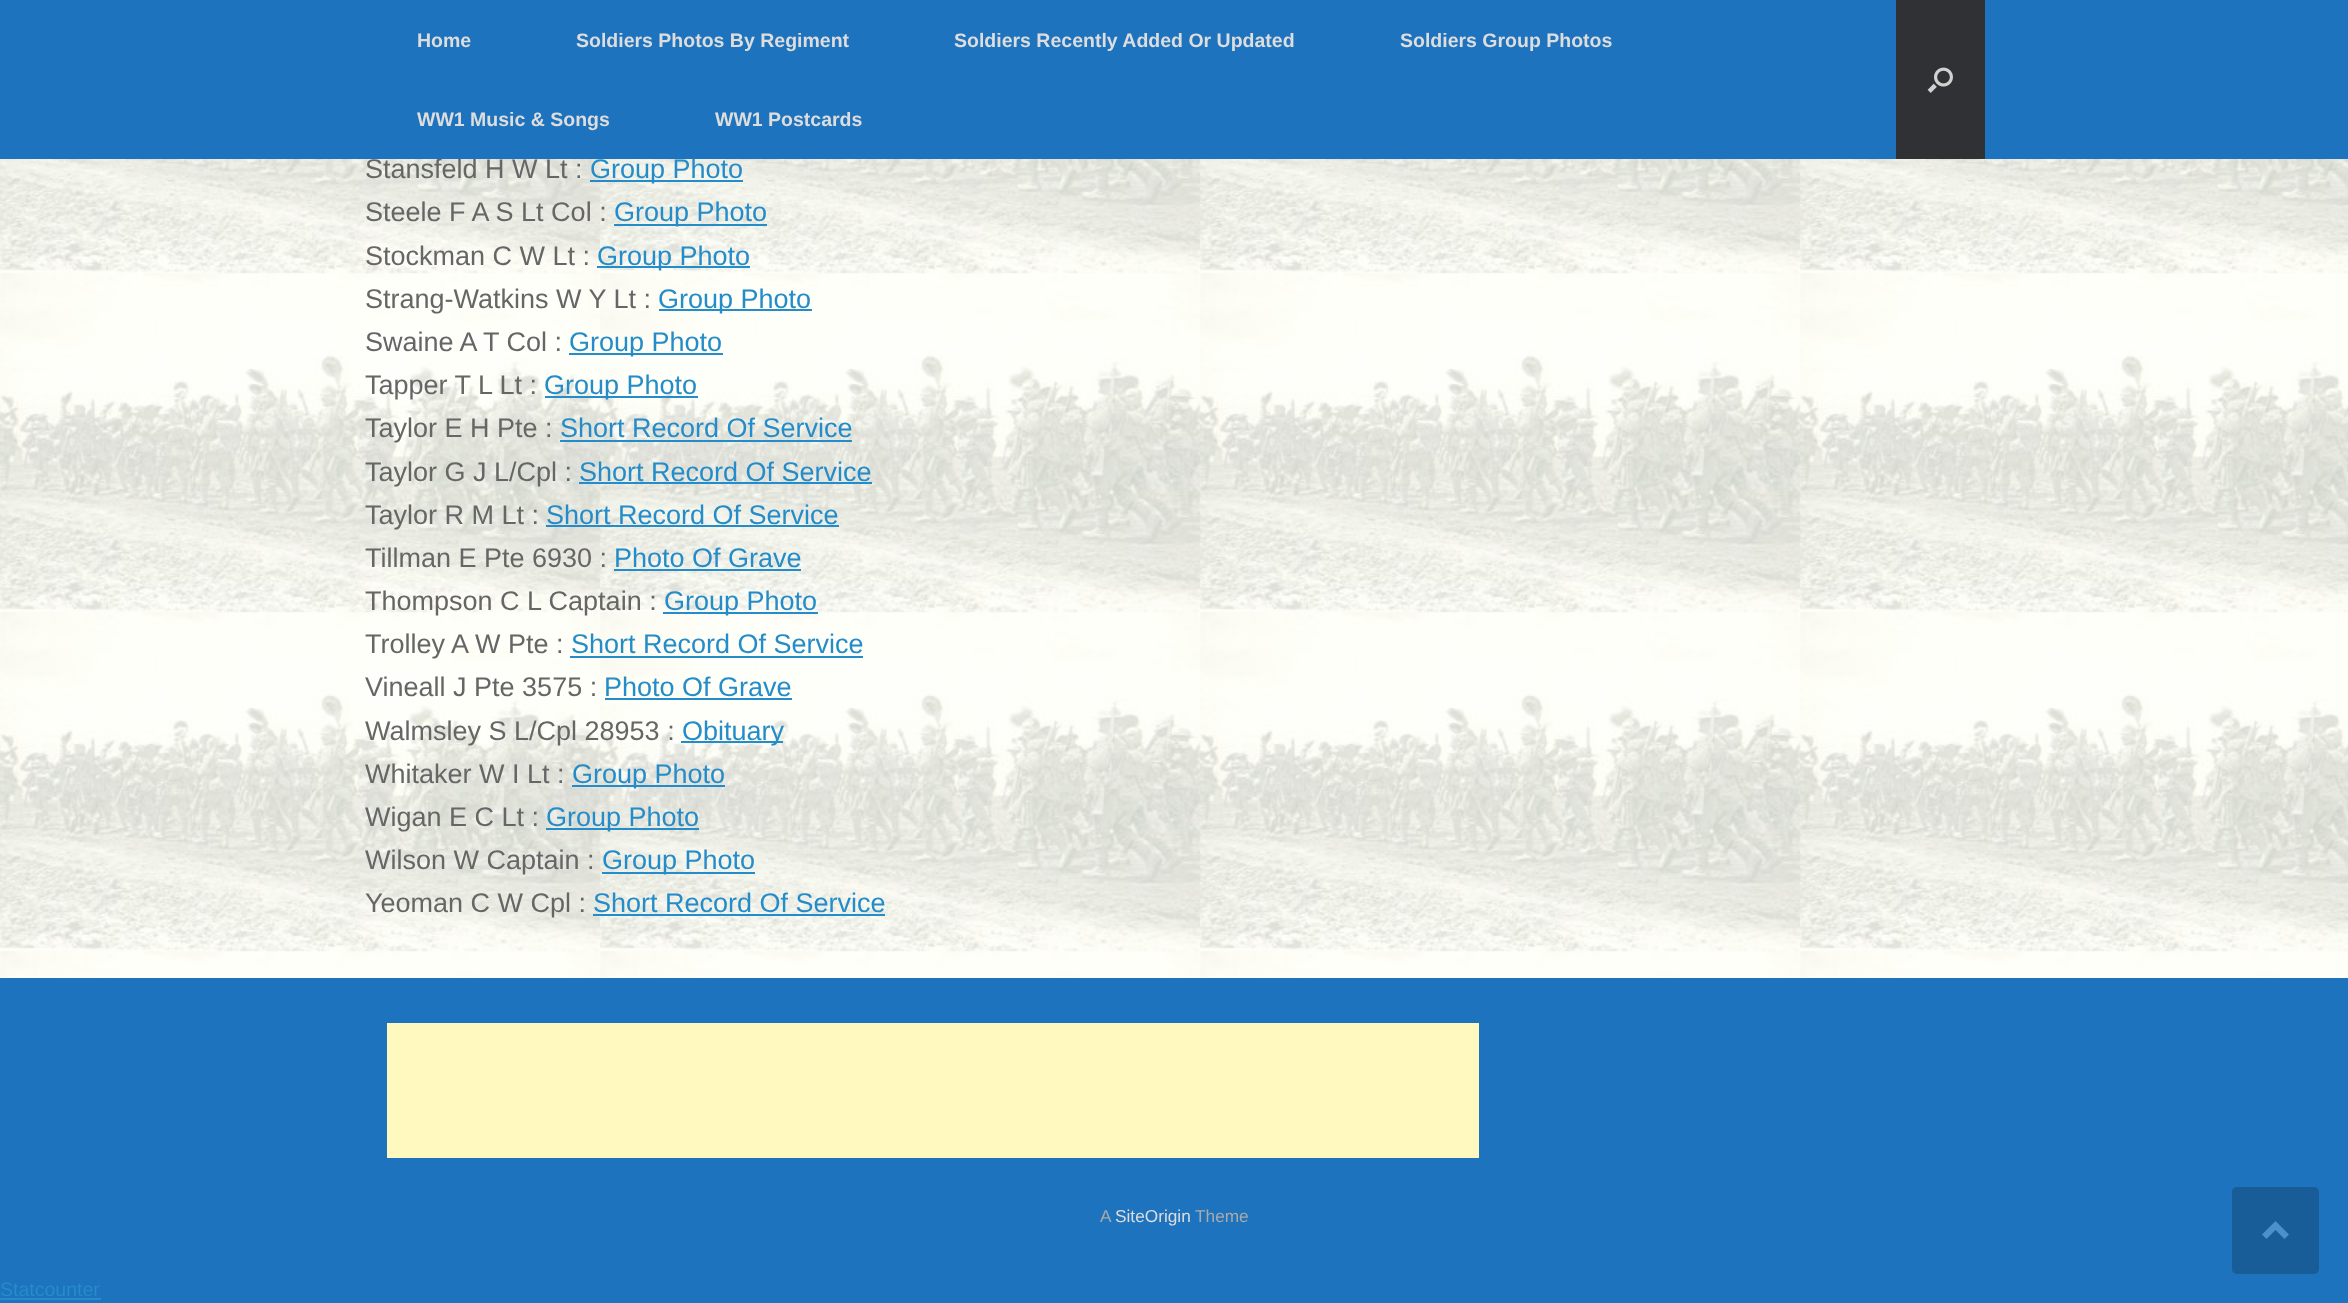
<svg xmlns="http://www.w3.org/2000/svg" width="2348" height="1303">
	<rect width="100%" height="100%" fill="#1E73BE" />
	<image x="0" y="159" width="2348" height="819" href="assets/img2.png" />
	<text x="365" y="178" font-family="Liberation Sans" font-size="27" fill="#666666">Stansfeld H W Lt :</text>
	<rect x="590" y="180" width="153" height="2" fill="#248CC8" />
	<text x="590" y="178" font-family="Liberation Sans" font-size="27" fill="#248CC8">Group Photo</text>
	<rect x="437" y="158" width="258" height="1" fill="#1E73BE" />
	<g font-family="Liberation Sans" font-size="19.5" font-weight="700" fill="#DDDDDD">
		<text x="417" y="47">Home</text>
		<text x="576" y="47">Soldiers Photos By Regiment</text>
		<text x="954" y="47">Soldiers Recently Added Or Updated</text>
		<text x="1400" y="47">Soldiers Group Photos</text>
		<text x="417" y="126">WW1 Music &amp; Songs</text>
		<text x="715" y="126">WW1 Postcards</text>
	</g>
	<rect x="1896" y="0" width="89" height="159" fill="#303134" />
	<image x="1927" y="67" width="26" height="26" href="assets/img1.png" />
	<text x="365" y="221" font-family="Liberation Sans" font-size="27" fill="#666666">Steele F A S Lt Col :</text>
	<rect x="614" y="224" width="153" height="2" fill="#248CC8" />
	<text x="614" y="221" font-family="Liberation Sans" font-size="27" fill="#248CC8">Group Photo</text>
	<text x="365" y="265" font-family="Liberation Sans" font-size="27" fill="#666666">Stockman C W Lt :</text>
	<rect x="597" y="266" width="153" height="2" fill="#248CC8" />
	<text x="597" y="265" font-family="Liberation Sans" font-size="27" fill="#248CC8">Group Photo</text>
	<text x="365" y="308" font-family="Liberation Sans" font-size="27" fill="#666666">Strang-Watkins W Y Lt :</text>
	<rect x="659" y="309" width="153" height="2" fill="#248CC8" />
	<text x="658" y="308" font-family="Liberation Sans" font-size="27" fill="#248CC8">Group Photo</text>
	<text x="365" y="351" font-family="Liberation Sans" font-size="27" fill="#666666">Swaine A T Col :</text>
	<rect x="569" y="353" width="154" height="2" fill="#248CC8" />
	<text x="569" y="351" font-family="Liberation Sans" font-size="27" fill="#248CC8">Group Photo</text>
	<text x="365" y="394" font-family="Liberation Sans" font-size="27" fill="#666666">Tapper T L Lt :</text>
	<rect x="545" y="396" width="153" height="2" fill="#248CC8" />
	<text x="544" y="394" font-family="Liberation Sans" font-size="27" fill="#248CC8">Group Photo</text>
	<text x="365" y="437" font-family="Liberation Sans" font-size="27" fill="#666666">Taylor E H Pte :</text>
	<text x="560" y="437" font-family="Liberation Sans" font-size="27" fill="#248CC8">Short Record Of Service</text>
	<rect x="560" y="440" width="292" height="2" fill="#248CC8" />
	<text x="365" y="481" font-family="Liberation Sans" font-size="27" fill="#666666">Taylor G J L/Cpl :</text>
	<text x="579" y="481" font-family="Liberation Sans" font-size="27" fill="#248CC8">Short Record Of Service</text>
	<rect x="579" y="482" width="293" height="2" fill="#248CC8" />
	<text x="365" y="524" font-family="Liberation Sans" font-size="27" fill="#666666">Taylor R M Lt :</text>
	<text x="546" y="524" font-family="Liberation Sans" font-size="27" fill="#248CC8">Short Record Of Service</text>
	<rect x="546" y="525" width="293" height="2" fill="#248CC8" />
	<text x="365" y="567" font-family="Liberation Sans" font-size="27" fill="#666666">Tillman E Pte 6930 :</text>
	<text x="614" y="567" font-family="Liberation Sans" font-size="27" fill="#248CC8">Photo Of Grave</text>
	<rect x="614" y="569" width="187" height="2" fill="#248CC8" />
	<text x="365" y="610" font-family="Liberation Sans" font-size="27" fill="#666666">Thompson C L Captain :</text>
	<rect x="663" y="612" width="155" height="2" fill="#248CC8" />
	<text x="664" y="610" font-family="Liberation Sans" font-size="27" fill="#248CC8">Group Photo</text>
	<text x="365" y="653" font-family="Liberation Sans" font-size="27" fill="#666666">Trolley A W Pte :</text>
	<text x="571" y="653" font-family="Liberation Sans" font-size="27" fill="#248CC8">Short Record Of Service</text>
	<rect x="570" y="656" width="293" height="2" fill="#248CC8" />
	<text x="365" y="696" font-family="Liberation Sans" font-size="27" fill="#666666">Vineall J Pte 3575 :</text>
	<text x="604" y="696" font-family="Liberation Sans" font-size="27" fill="#248CC8">Photo Of Grave</text>
	<rect x="605" y="698" width="187" height="2" fill="#248CC8" />
	<text x="365" y="740" font-family="Liberation Sans" font-size="27" fill="#666666">Walmsley S L/Cpl 28953 :</text>
	<rect x="681" y="741" width="102" height="2" fill="#248CC8" />
	<text x="682" y="740" font-family="Liberation Sans" font-size="27" fill="#248CC8">Obituary</text>
	<text x="365" y="783" font-family="Liberation Sans" font-size="27" fill="#666666">Whitaker W I Lt :</text>
	<rect x="572" y="785" width="153" height="2" fill="#248CC8" />
	<text x="572" y="783" font-family="Liberation Sans" font-size="27" fill="#248CC8">Group Photo</text>
	<text x="365" y="826" font-family="Liberation Sans" font-size="27" fill="#666666">Wigan E C Lt :</text>
	<rect x="546" y="828" width="153" height="2" fill="#248CC8" />
	<text x="546" y="826" font-family="Liberation Sans" font-size="27" fill="#248CC8">Group Photo</text>
	<text x="365" y="869" font-family="Liberation Sans" font-size="27" fill="#666666">Wilson W Captain :</text>
	<rect x="602" y="872" width="153" height="2" fill="#248CC8" />
	<text x="602" y="869" font-family="Liberation Sans" font-size="27" fill="#248CC8">Group Photo</text>
	<text x="365" y="912" font-family="Liberation Sans" font-size="27" fill="#666666">Yeoman C W Cpl :</text>
	<text x="593" y="912" font-family="Liberation Sans" font-size="27" fill="#248CC8">Short Record Of Service</text>
	<rect x="593" y="914" width="292" height="2" fill="#248CC8" />
	<rect x="387" y="1023" width="1092" height="135" fill="#FFF9C0" />
	<text x="1100" y="1222" font-family="Liberation Sans" font-size="17.25" fill="#AAAAAA">A</text>
	<text x="1115" y="1222" font-family="Liberation Sans" font-size="17.25" fill="#DDDDDD">SiteOrigin</text>
	<text x="1195" y="1222" font-family="Liberation Sans" font-size="17.25" fill="#AAAAAA">Theme</text>
	<rect x="2232" y="1187" width="87" height="87" rx="5" fill="#185C98" />
	<path d="M2289 1234.5L2275.5 1221L2262 1234.5L2266.5 1239L2275.5 1230L2284.5 1239Z" fill="#4B8FCB" />
	<text x="0" y="1296" font-family="Liberation Sans" font-size="19.5" fill="#248CC8">Statcounter</text>
	<rect x="0" y="1298" width="101" height="2" fill="#248CC8" />
</svg>
